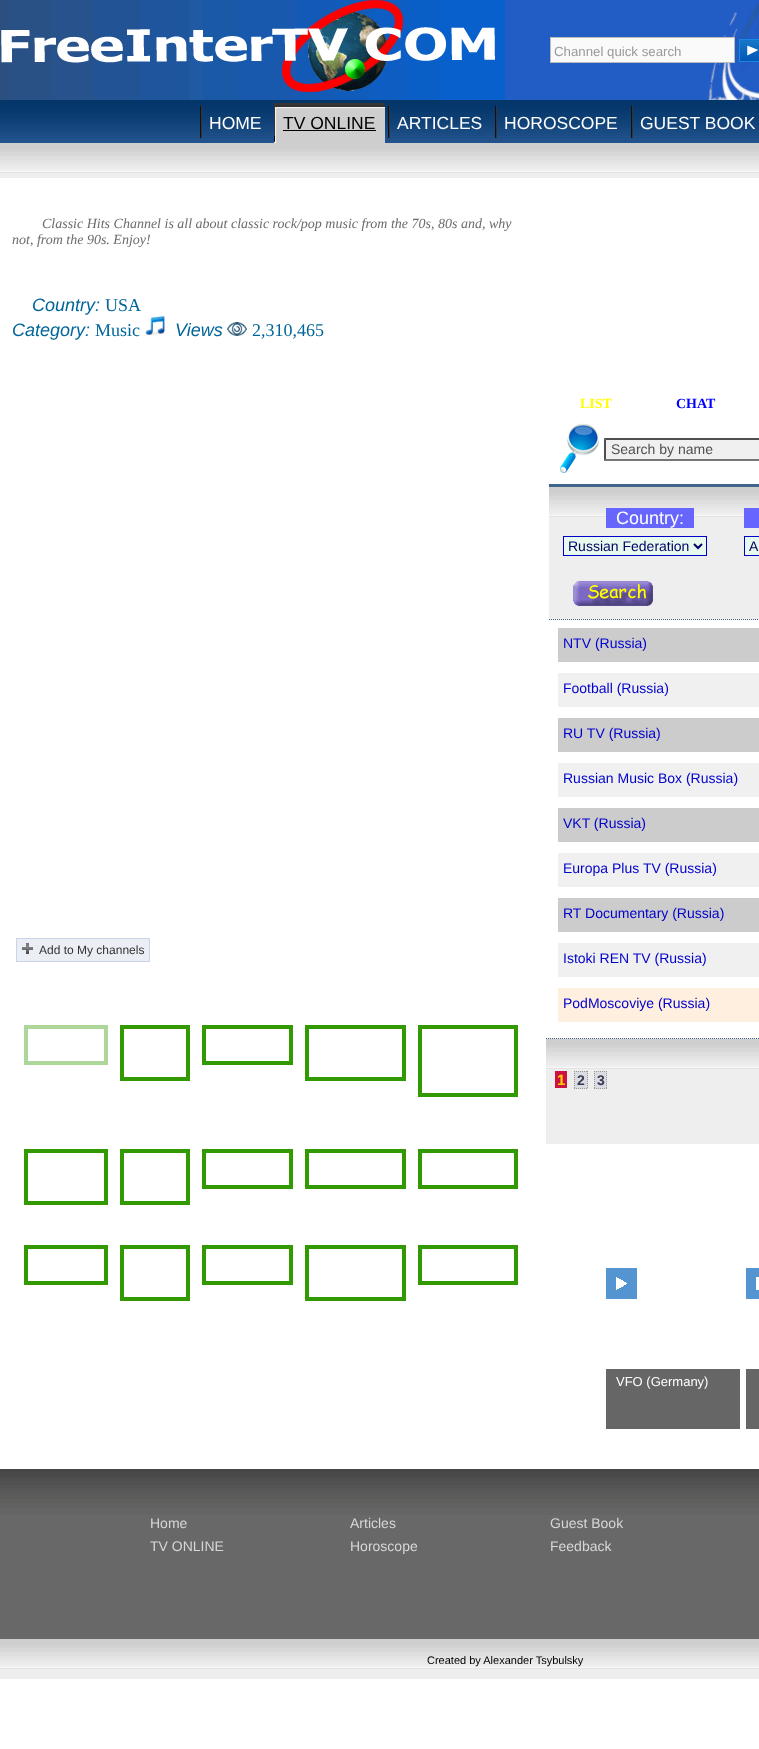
<svg xmlns="http://www.w3.org/2000/svg" width="759" height="1749">
	<rect width="100%" height="100%" fill="#FFFFFF" />
	<rect x="505" y="0" width="254" height="100" fill="#225CC5" />
	<image x="708" y="2" width="51" height="98" href="assets/img1.png" />
	<image x="0" y="0" width="505" height="100" href="assets/img2.png" />
	<rect x="550.5" y="37.5" width="184" height="25" fill="#FAFAFA" stroke="#BCBBBB" />
	<text x="554" y="56" font-family="Liberation Sans" font-size="13.25" fill="#999999">Channel quick search</text>
	<image x="739" y="39" width="20" height="23" href="assets/img3.png" />
	<image x="0" y="100" width="759" height="43" href="assets/img4.png" />
	<image x="200" y="106" width="2" height="32" href="assets/img5.png" />
	<text x="209" y="129" font-family="Liberation Sans" font-size="17.5" fill="#FFFFFF">HOME</text>
	<image x="274" y="103" width="111" height="40" href="assets/img6.png" />
	<text x="283" y="129" font-family="Liberation Sans" font-size="17.5" fill="#000000">TV ONLINE</text>
	<rect x="283" y="130" width="93" height="1" fill="#000000" />
	<image x="388" y="106" width="2" height="32" href="assets/img5.png" />
	<text x="397" y="129" font-family="Liberation Sans" font-size="17.5" fill="#FFFFFF">ARTICLES</text>
	<image x="495" y="106" width="2" height="32" href="assets/img5.png" />
	<text x="504" y="129" font-family="Liberation Sans" font-size="17.5" fill="#FFFFFF">HOROSCOPE</text>
	<image x="631" y="106" width="2" height="32" href="assets/img5.png" />
	<text x="640" y="129" font-family="Liberation Sans" font-size="17.5" fill="#FFFFFF">GUEST BOOK</text>
	<rect x="0" y="173" width="759" height="5" fill="#EEEEEE" />
	<image x="0" y="143" width="759" height="30" href="assets/img7.png" />
	<g font-family="Liberation Serif" font-size="14" font-style="italic" fill="#6B6B6B">
		<text x="42" y="228">Classic Hits Channel is all about classic rock/pop music from the 70s, 80s and, why</text>
		<text x="12" y="244">not, from the 90s. Enjoy!</text>
	</g>
	<text x="32" y="311" font-family="Liberation Sans" font-size="18" font-style="italic" fill="#006699">Country:</text>
	<text x="105" y="311" font-family="Liberation Serif" font-size="18" fill="#006699">USA</text>
	<text x="12" y="336" font-family="Liberation Sans" font-size="18" font-style="italic" fill="#006699">Category:</text>
	<text x="95" y="336" font-family="Liberation Serif" font-size="18" fill="#006699">Music</text>
	<image x="145" y="316" width="20" height="20" href="assets/img8.png" />
	<text x="175" y="336" font-family="Liberation Sans" font-size="18" font-style="italic" fill="#006699">Views</text>
	<image x="227" y="322" width="20" height="14" href="assets/img9.png" />
	<text x="252" y="336" font-family="Liberation Serif" font-size="18" fill="#006699">2,310,465</text>
	<rect x="16.5" y="938.5" width="133" height="23" fill="#ECEEF5" stroke="#CAD4E7" />
	<image x="22" y="943" width="11" height="11" href="assets/img10.png" />
	<text x="39" y="954" font-family="Liberation Sans" font-size="12" fill="#333333">Add to My channels</text>
	<rect x="26" y="1027" width="80" height="36" fill="none" stroke="#ADD699" stroke-width="4" />
	<rect x="122" y="1027" width="66" height="52" fill="none" stroke="#339900" stroke-width="4" />
	<rect x="204" y="1027" width="87" height="36" fill="none" stroke="#339900" stroke-width="4" />
	<rect x="307" y="1027" width="97" height="52" fill="none" stroke="#339900" stroke-width="4" />
	<rect x="420" y="1027" width="96" height="68" fill="none" stroke="#339900" stroke-width="4" />
	<rect x="26" y="1151" width="80" height="52" fill="none" stroke="#339900" stroke-width="4" />
	<rect x="122" y="1151" width="66" height="52" fill="none" stroke="#339900" stroke-width="4" />
	<rect x="204" y="1151" width="87" height="36" fill="none" stroke="#339900" stroke-width="4" />
	<rect x="307" y="1151" width="97" height="36" fill="none" stroke="#339900" stroke-width="4" />
	<rect x="420" y="1151" width="96" height="36" fill="none" stroke="#339900" stroke-width="4" />
	<rect x="26" y="1247" width="80" height="36" fill="none" stroke="#339900" stroke-width="4" />
	<rect x="122" y="1247" width="66" height="52" fill="none" stroke="#339900" stroke-width="4" />
	<rect x="204" y="1247" width="87" height="36" fill="none" stroke="#339900" stroke-width="4" />
	<rect x="307" y="1247" width="97" height="52" fill="none" stroke="#339900" stroke-width="4" />
	<rect x="420" y="1247" width="96" height="36" fill="none" stroke="#339900" stroke-width="4" />
	<text x="580" y="408" font-family="Liberation Serif" font-size="14" font-weight="700" fill="#FFFF00">LIST</text>
	<text x="676" y="408" font-family="Liberation Serif" font-size="14" font-weight="700" fill="#0000FF">CHAT</text>
	<image x="560" y="423" width="39" height="50" href="assets/img11.png" />
	<rect x="604" y="438" width="155" height="23" fill="#F0F0F0" />
	<path d="M604 438H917L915 440H606Z" fill="#4F4F4F" />
	<path d="M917 461H604L606 459H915Z" fill="#767676" />
	<path d="M604 461V438L606 440V459Z" fill="#4F4F4F" />
	<text x="611" y="454" font-family="Liberation Sans" font-size="14" fill="#505050">Search by name</text>
	<rect x="549" y="517" width="210" height="103" fill="#EEEEEE" />
	<image x="549" y="487" width="210" height="30" href="assets/img12.png" />
	<rect x="549" y="484" width="210" height="3" fill="#3F658B" />
	<path d="M549 619.5H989" fill="none" stroke="#3F658B" stroke-dasharray="1 1" />
	<rect x="606" y="508" width="88" height="20" fill="#6666FF" />
	<text x="616" y="524" font-family="Liberation Sans" font-size="18" fill="#FFFFFF">Country:</text>
	<rect x="744" y="508" width="15" height="20" fill="#6666FF" />
	<rect x="563.5" y="536.5" width="143" height="19" fill="#E8F9ED" stroke="#0000CC" />
	<path d="M694 544L698 548L702 544" fill="none" stroke="#000066" stroke-width="2" />
	<text x="568" y="551" font-family="Liberation Sans" font-size="14" fill="#000066">Russian Federation</text>
	<rect x="744.5" y="536.5" width="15" height="19" fill="#E8F9ED" stroke="#0000CC" />
	<text x="749" y="551" font-family="Liberation Sans" font-size="14" fill="#000066">A</text>
	<image x="573" y="581" width="80" height="25" href="assets/img13.png" />
	<rect x="558" y="628" width="201" height="34" fill="#CCCCCC" />
	<text x="563" y="648" font-family="Liberation Sans" font-size="14" fill="#0000CC">NTV (Russia)</text>
	<rect x="558" y="673" width="201" height="34" fill="#F0F0F0" />
	<text x="563" y="693" font-family="Liberation Sans" font-size="14" fill="#0000CC">Football (Russia)</text>
	<rect x="558" y="718" width="201" height="34" fill="#CCCCCC" />
	<text x="563" y="738" font-family="Liberation Sans" font-size="14" fill="#0000CC">RU TV (Russia)</text>
	<rect x="558" y="763" width="201" height="34" fill="#F0F0F0" />
	<text x="563" y="783" font-family="Liberation Sans" font-size="14" fill="#0000CC">Russian Music Box (Russia)</text>
	<rect x="558" y="808" width="201" height="34" fill="#CCCCCC" />
	<text x="563" y="828" font-family="Liberation Sans" font-size="14" fill="#0000CC">VKT (Russia)</text>
	<rect x="558" y="853" width="201" height="34" fill="#F0F0F0" />
	<text x="563" y="873" font-family="Liberation Sans" font-size="14" fill="#0000CC">Europa Plus TV (Russia)</text>
	<rect x="558" y="898" width="201" height="34" fill="#CCCCCC" />
	<text x="563" y="918" font-family="Liberation Sans" font-size="14" fill="#0000CC">RT Documentary (Russia)</text>
	<rect x="558" y="943" width="201" height="34" fill="#F0F0F0" />
	<text x="563" y="963" font-family="Liberation Sans" font-size="14" fill="#0000CC">Istoki REN TV (Russia)</text>
	<rect x="558" y="988" width="201" height="34" fill="#FFEFDF" />
	<text x="563" y="1008" font-family="Liberation Sans" font-size="14" fill="#0000CC">PodMoscoviye (Russia)</text>
	<rect x="546" y="1038" width="213" height="106" fill="#EEEEEE" />
	<image x="546" y="1039" width="213" height="30" href="assets/img14.png" />
	<path d="M546 1038.5H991" fill="none" stroke="#3F658B" stroke-dasharray="1 1" />
	<rect x="555" y="1071" width="12" height="17" fill="#CD1242" />
	<text x="557" y="1085" font-family="Liberation Sans" font-size="15" font-weight="700" fill="#FFD400">1</text>
	<rect x="574" y="1071" width="14" height="18" fill="#D9DDE2" />
	<path d="M574 1071.5H588M587.5 1071V1089M574 1088.5H588M574.5 1071V1089" fill="none" stroke="#999999" stroke-dasharray="1 1" />
	<text x="577" y="1085" font-family="Liberation Sans" font-size="14" font-weight="700" fill="#393753">2</text>
	<rect x="594" y="1071" width="13" height="18" fill="#D9DDE2" />
	<path d="M594 1071.5H607M606.5 1071V1089M594 1088.5H607M594.5 1071V1089" fill="none" stroke="#999999" stroke-dasharray="1 1" />
	<text x="597" y="1085" font-family="Liberation Sans" font-size="14" font-weight="700" fill="#393753">3</text>
	<rect x="606" y="1268" width="31" height="31" fill="#5495D1" />
	<image x="616" y="1277" width="11" height="13" href="assets/img15.png" />
	<rect x="606" y="1369" width="134" height="60" fill="#666666" />
	<text x="616" y="1386" font-family="Liberation Sans" font-size="13" fill="#FFFFFF">VFO (Germany)</text>
	<rect x="746" y="1268" width="13" height="31" fill="#5495D1" />
	<rect x="756" y="1277" width="3" height="13" fill="#FFFFFF" />
	<rect x="746" y="1369" width="13" height="60" fill="#666666" />
	<image x="0" y="1469" width="759" height="170" href="assets/img16.png" />
	<g font-family="Liberation Sans" font-size="14" fill="#D7D7D7">
		<text x="150" y="1528">Home</text>
		<text x="150" y="1551">TV ONLINE</text>
		<text x="350" y="1528">Articles</text>
		<text x="350" y="1551">Horoscope</text>
		<text x="550" y="1528">Guest Book</text>
		<text x="550" y="1551">Feedback</text>
	</g>
	<rect x="0" y="1669" width="759" height="10" fill="#EEEEEE" />
	<image x="0" y="1639" width="759" height="30" href="assets/img7.png" />
	<text x="427" y="1664" font-family="Liberation Sans" font-size="11" fill="#000000">Created by Alexander Tsybulsky</text>
</svg>
